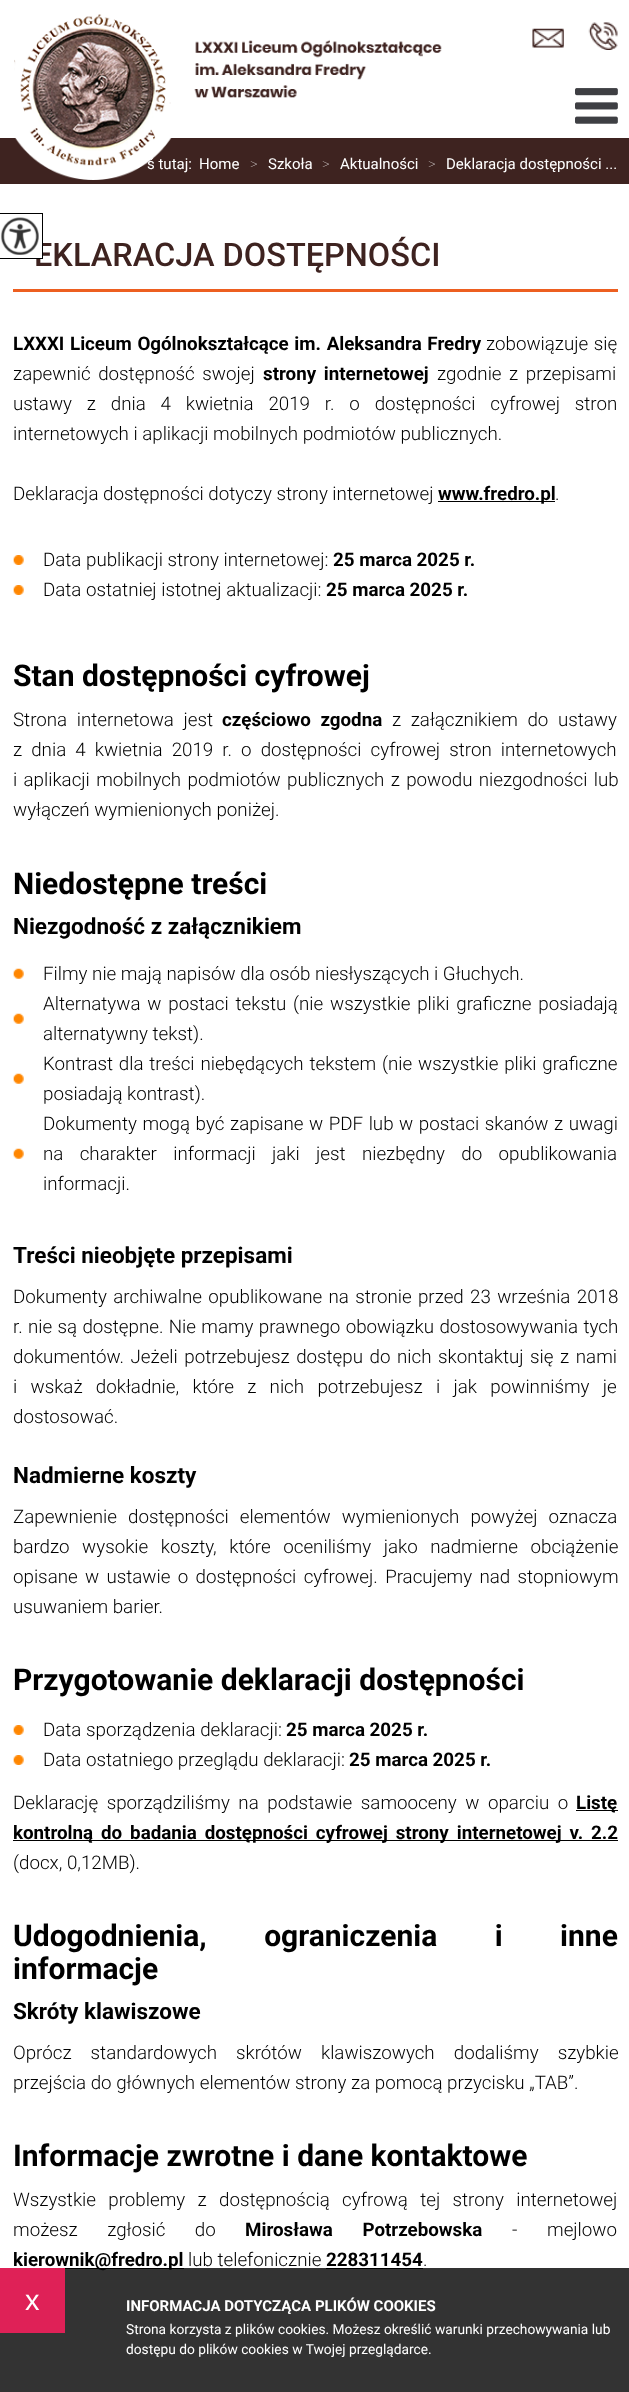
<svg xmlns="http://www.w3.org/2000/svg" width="629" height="2392">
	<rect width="100%" height="100%" fill="#FFFFFF" />
	<rect x="0" y="138" width="629" height="46" fill="#3E2320" />
	<g font-family="Roboto" font-size="15" fill="#FFFFFF">
		<text x="147" y="169">ś tutaj:</text>
		<text x="199" y="169">Home</text>
	</g>
	<text x="250" y="169" font-family="Roboto" font-size="15" font-weight="100" fill="#FFFFFF">&gt;</text>
	<text x="268" y="169" font-family="Roboto" font-size="15" fill="#FFFFFF">Szkoła</text>
	<text x="322" y="169" font-family="Roboto" font-size="15" font-weight="100" fill="#FFFFFF">&gt;</text>
	<text x="340" y="169" font-family="Roboto" font-size="15" fill="#FFFFFF">Aktualności</text>
	<text x="428" y="169" font-family="Roboto" font-size="15" font-weight="100" fill="#FFFFFF">&gt;</text>
	<image x="14" y="14" width="428" height="166" href="assets/img1.png" />
	<image x="532" y="28" width="32" height="20" href="assets/img2.png" />
	<image x="588" y="22" width="30" height="28" href="assets/img3.png" />
	<image x="575" y="88" width="43" height="36" href="assets/img4.png" />
	<text x="446" y="169" font-family="Roboto" font-size="15" fill="#FFFFFF">Deklaracja dostępności ...</text>
	<text x="34" y="266" font-family="Roboto" font-size="32.5" font-weight="500" fill="#3E2320">EKLARACJA DOSTĘPNOŚCI</text>
	<rect x="36" y="242" width="6" height="16" fill="#FFFFFF" />
	<rect x="-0.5" y="213.5" width="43" height="45" fill="none" stroke="#000000" />
	<image x="0" y="217" width="39" height="38" href="assets/img5.png" />
	<rect x="13" y="289" width="605" height="3" fill="#ED5F20" />
	<text x="13" y="350" word-spacing="1" font-family="Roboto" font-size="18.75" font-weight="700" fill="#000000">LXXXI Liceum Ogólnokształcące im. Aleksandra Fredry</text>
	<g font-family="Roboto" font-size="18.75" font-weight="300" fill="#000000">
		<text x="486" y="350" word-spacing="1">zobowiązuje się</text>
		<text x="13" y="380" word-spacing="3">zapewnić dostępność swojej</text>
	</g>
	<text x="263" y="380" word-spacing="3" font-family="Roboto" font-size="18.75" font-weight="700" fill="#000000">strony internetowej</text>
	<g font-family="Roboto" font-size="18.75" font-weight="300" fill="#000000">
		<text x="437" y="380" word-spacing="3">zgodnie z przepisami</text>
		<text x="13" y="410" word-spacing="10.25">ustawy z dnia 4 kwietnia 2019 r. o dostępności cyfrowej stron</text>
		<text x="13" y="440">internetowych i aplikacji mobilnych podmiotów publicznych.</text>
		<text x="13" y="500">Deklaracja dostępności dotyczy strony internetowej</text>
	</g>
	<rect x="438" y="501" width="117" height="1" fill="#000000" />
	<text x="438" y="500" font-family="Roboto" font-size="18.75" font-weight="700" fill="#000000">www.fredro.pl</text>
	<text x="555" y="500" font-family="Roboto" font-size="18.75" font-weight="300" fill="#000000">.</text>
	<image x="13" y="555" width="11" height="10" href="assets/img6.png" />
	<text x="43" y="566" font-family="Roboto" font-size="18.75" font-weight="300" fill="#000000">Data publikacji strony internetowej:</text>
	<text x="333" y="566" font-family="Roboto" font-size="18.75" font-weight="700" fill="#000000">25 marca 2025 r.</text>
	<image x="13" y="585" width="11" height="10" href="assets/img7.png" />
	<text x="43" y="596" font-family="Roboto" font-size="18.75" font-weight="300" fill="#000000">Data ostatniej istotnej aktualizacji:</text>
	<text x="326" y="596" font-family="Roboto" font-size="18.75" font-weight="700" fill="#000000">25 marca 2025 r.</text>
	<text x="13" y="686" font-family="Roboto" font-size="30" font-weight="700" fill="#000000">Stan dostępności cyfrowej</text>
	<text x="13" y="726" word-spacing="5" font-family="Roboto" font-size="18.75" font-weight="300" fill="#000000">Strona internetowa jest</text>
	<text x="222" y="726" word-spacing="5" font-family="Roboto" font-size="18.75" font-weight="700" fill="#000000">częściowo zgodna</text>
	<g font-family="Roboto" font-size="18.75" font-weight="300" fill="#000000">
		<text x="392" y="726" word-spacing="5">z załącznikiem do ustawy</text>
		<text x="13" y="756" word-spacing="4.5">z dnia 4 kwietnia 2019 r. o dostępności cyfrowej stron internetowych</text>
		<text x="13" y="786" word-spacing="1.75">i aplikacji mobilnych podmiotów publicznych z powodu niezgodności lub</text>
		<text x="13" y="816">wyłączeń wymienionych poniżej.</text>
	</g>
	<text x="13" y="894" font-family="Roboto" font-size="30" font-weight="700" fill="#000000">Niedostępne treści</text>
	<text x="13" y="934" font-family="Roboto" font-size="22.5" font-weight="700" fill="#000000">Niezgodność z załącznikiem</text>
	<image x="13" y="968" width="11" height="11" href="assets/img8.png" />
	<text x="43" y="980" font-family="Roboto" font-size="18.75" font-weight="300" fill="#000000">Filmy nie mają napisów dla osób niesłyszących i Głuchych.</text>
	<image x="13" y="1013" width="11" height="11" href="assets/img8.png" />
	<g font-family="Roboto" font-size="18.75" font-weight="300" fill="#000000">
		<text x="43" y="1010" word-spacing="2.25">Alternatywa w postaci tekstu (nie wszystkie pliki graficzne posiadają</text>
		<text x="43" y="1040">alternatywny tekst).</text>
	</g>
	<image x="13" y="1073" width="11" height="11" href="assets/img8.png" />
	<g font-family="Roboto" font-size="18.75" font-weight="300" fill="#000000">
		<text x="43" y="1070" word-spacing="1.25">Kontrast dla treści niebędących tekstem (nie wszystkie pliki graficzne</text>
		<text x="43" y="1100">posiadają kontrast).</text>
	</g>
	<image x="13" y="1148" width="11" height="11" href="assets/img8.png" />
	<g font-family="Roboto" font-size="18.75" font-weight="300" fill="#000000">
		<text x="43" y="1130" word-spacing="1">Dokumenty mogą być zapisane w PDF lub w postaci skanów z uwagi</text>
		<text x="43" y="1160" word-spacing="11.75">na charakter informacji jaki jest niezbędny do opublikowania</text>
		<text x="43" y="1190">informacji.</text>
	</g>
	<text x="13" y="1263" font-family="Roboto" font-size="22.5" font-weight="700" fill="#000000">Treści nieobjęte przepisami</text>
	<g font-family="Roboto" font-size="18.75" font-weight="300" fill="#000000">
		<text x="13" y="1303" word-spacing="1.75">Dokumenty archiwalne opublikowane na stronie przed 23 września 2018</text>
		<text x="13" y="1333" word-spacing="0.75">r. nie są dostępne. Nie mamy prawnego obowiązku dostosowywania tych</text>
		<text x="13" y="1363" word-spacing="2">dokumentów. Jeżeli potrzebujesz dostępu do nich skontaktuj się z nami</text>
		<text x="13" y="1393" word-spacing="8.75">i wskaż dokładnie, które z nich potrzebujesz i jak powinniśmy je</text>
		<text x="13" y="1423">dostosować.</text>
	</g>
	<text x="13" y="1483" font-family="Roboto" font-size="22.5" font-weight="700" fill="#000000">Nadmierne koszty</text>
	<g font-family="Roboto" font-size="18.75" font-weight="300" fill="#000000">
		<text x="13" y="1523" word-spacing="6.5">Zapewnienie dostępności elementów wymienionych powyżej oznacza</text>
		<text x="13" y="1553" word-spacing="8">bardzo wysokie koszty, które oceniliśmy jako nadmierne obciążenie</text>
		<text x="13" y="1583" word-spacing="2.75">opisane w ustawie o dostępności cyfrowej. Pracujemy nad stopniowym</text>
		<text x="13" y="1613">usuwaniem barier.</text>
	</g>
	<text x="13" y="1690" font-family="Roboto" font-size="30" font-weight="700" fill="#000000">Przygotowanie deklaracji dostępności</text>
	<image x="13" y="1725" width="11" height="10" href="assets/img6.png" />
	<text x="43" y="1736" font-family="Roboto" font-size="18.75" font-weight="300" fill="#000000">Data sporządzenia deklaracji:</text>
	<text x="286" y="1736" font-family="Roboto" font-size="18.75" font-weight="700" fill="#000000">25 marca 2025 r.</text>
	<image x="13" y="1755" width="11" height="10" href="assets/img6.png" />
	<text x="43" y="1766" font-family="Roboto" font-size="18.75" font-weight="300" fill="#000000">Data ostatniego przeglądu deklaracji:</text>
	<text x="349" y="1766" font-family="Roboto" font-size="18.75" font-weight="700" fill="#000000">25 marca 2025 r.</text>
	<text x="13" y="1809" word-spacing="4" font-family="Roboto" font-size="18.75" font-weight="300" fill="#000000">Deklarację sporządziliśmy na podstawie samooceny w oparciu o</text>
	<rect x="576" y="1810" width="42" height="1" fill="#000000" />
	<text x="576" y="1809" font-family="Roboto" font-size="18.75" font-weight="700" fill="#000000">Listę</text>
	<rect x="13" y="1840" width="605" height="1" fill="#000000" />
	<text x="13" y="1839" word-spacing="3.25" font-family="Roboto" font-size="18.75" font-weight="700" fill="#000000">kontrolną do badania dostępności cyfrowej strony internetowej v. 2.2</text>
	<text x="13" y="1869" font-family="Roboto" font-size="18.75" font-weight="300" fill="#000000">(docx, 0,12MB).</text>
	<g font-family="Roboto" font-size="30" font-weight="700" fill="#000000">
		<text x="13" y="1946" word-spacing="50">Udogodnienia, ograniczenia i inne</text>
		<text x="13" y="1979">informacje</text>
	</g>
	<text x="13" y="2019" font-family="Roboto" font-size="22.5" font-weight="700" fill="#000000">Skróty klawiszowe</text>
	<g font-family="Roboto" font-size="18.75" font-weight="300" fill="#000000">
		<text x="13" y="2059" word-spacing="14.5">Oprócz standardowych skrótów klawiszowych dodaliśmy szybkie</text>
		<text x="13" y="2089">przejścia do głównych elementów strony za pomocą przycisku „TAB”.</text>
	</g>
	<text x="13" y="2166" font-family="Roboto" font-size="30" font-weight="700" fill="#000000">Informacje zwrotne i dane kontaktowe</text>
	<g font-family="Roboto" font-size="18.75" font-weight="300" fill="#000000">
		<text x="13" y="2206" word-spacing="7.75">Wszystkie problemy z dostępnością cyfrową tej strony internetowej</text>
		<text x="13" y="2236" word-spacing="25">możesz zgłosić do</text>
	</g>
	<text x="245" y="2236" word-spacing="25" font-family="Roboto" font-size="18.75" font-weight="700" fill="#000000">Mirosława Potrzebowska</text>
	<text x="512" y="2236" font-family="Roboto" font-size="18.75" font-weight="300" fill="#000000">-</text>
	<text x="547" y="2236" font-family="Roboto" font-size="18.75" font-weight="300" fill="#000000">mejlowo</text>
	<rect x="65" y="2268" width="119" height="1" fill="#000000" />
	<text x="13" y="2266" font-family="Roboto" font-size="18.75" font-weight="700" fill="#000000">kierownik@fredro.pl</text>
	<text x="188" y="2266" font-family="Roboto" font-size="18.75" font-weight="300" fill="#000000">lub telefonicznie</text>
	<text x="326" y="2266" font-family="Roboto" font-size="18.75" font-weight="700" fill="#000000">228311454</text>
	<rect x="326" y="2268" width="97" height="1" fill="#000000" />
	<text x="423" y="2266" font-family="Roboto" font-size="18.75" font-weight="300" fill="#000000">.</text>
	<rect x="0" y="2268" width="629" height="124" fill="#000000" fill-opacity="0.8" />
	<rect x="0" y="2268" width="65" height="65" fill="#DF2157" />
	<text x="25" y="2310" font-family="Liberation Sans" font-size="29" fill="#FFFFFF">x</text>
	<text x="126" y="2311" font-family="Roboto" font-size="15" font-weight="700" fill="#FFFFFF">INFORMACJA DOTYCZĄCA PLIKÓW COOKIES</text>
	<g font-family="Roboto" font-size="13.75" fill="#FFFFFF">
		<text x="126" y="2334">Strona korzysta z plików cookies. Możesz określić warunki przechowywania lub</text>
		<text x="126" y="2354">dostępu do plików cookies w Twojej przeglądarce.</text>
	</g>
</svg>
